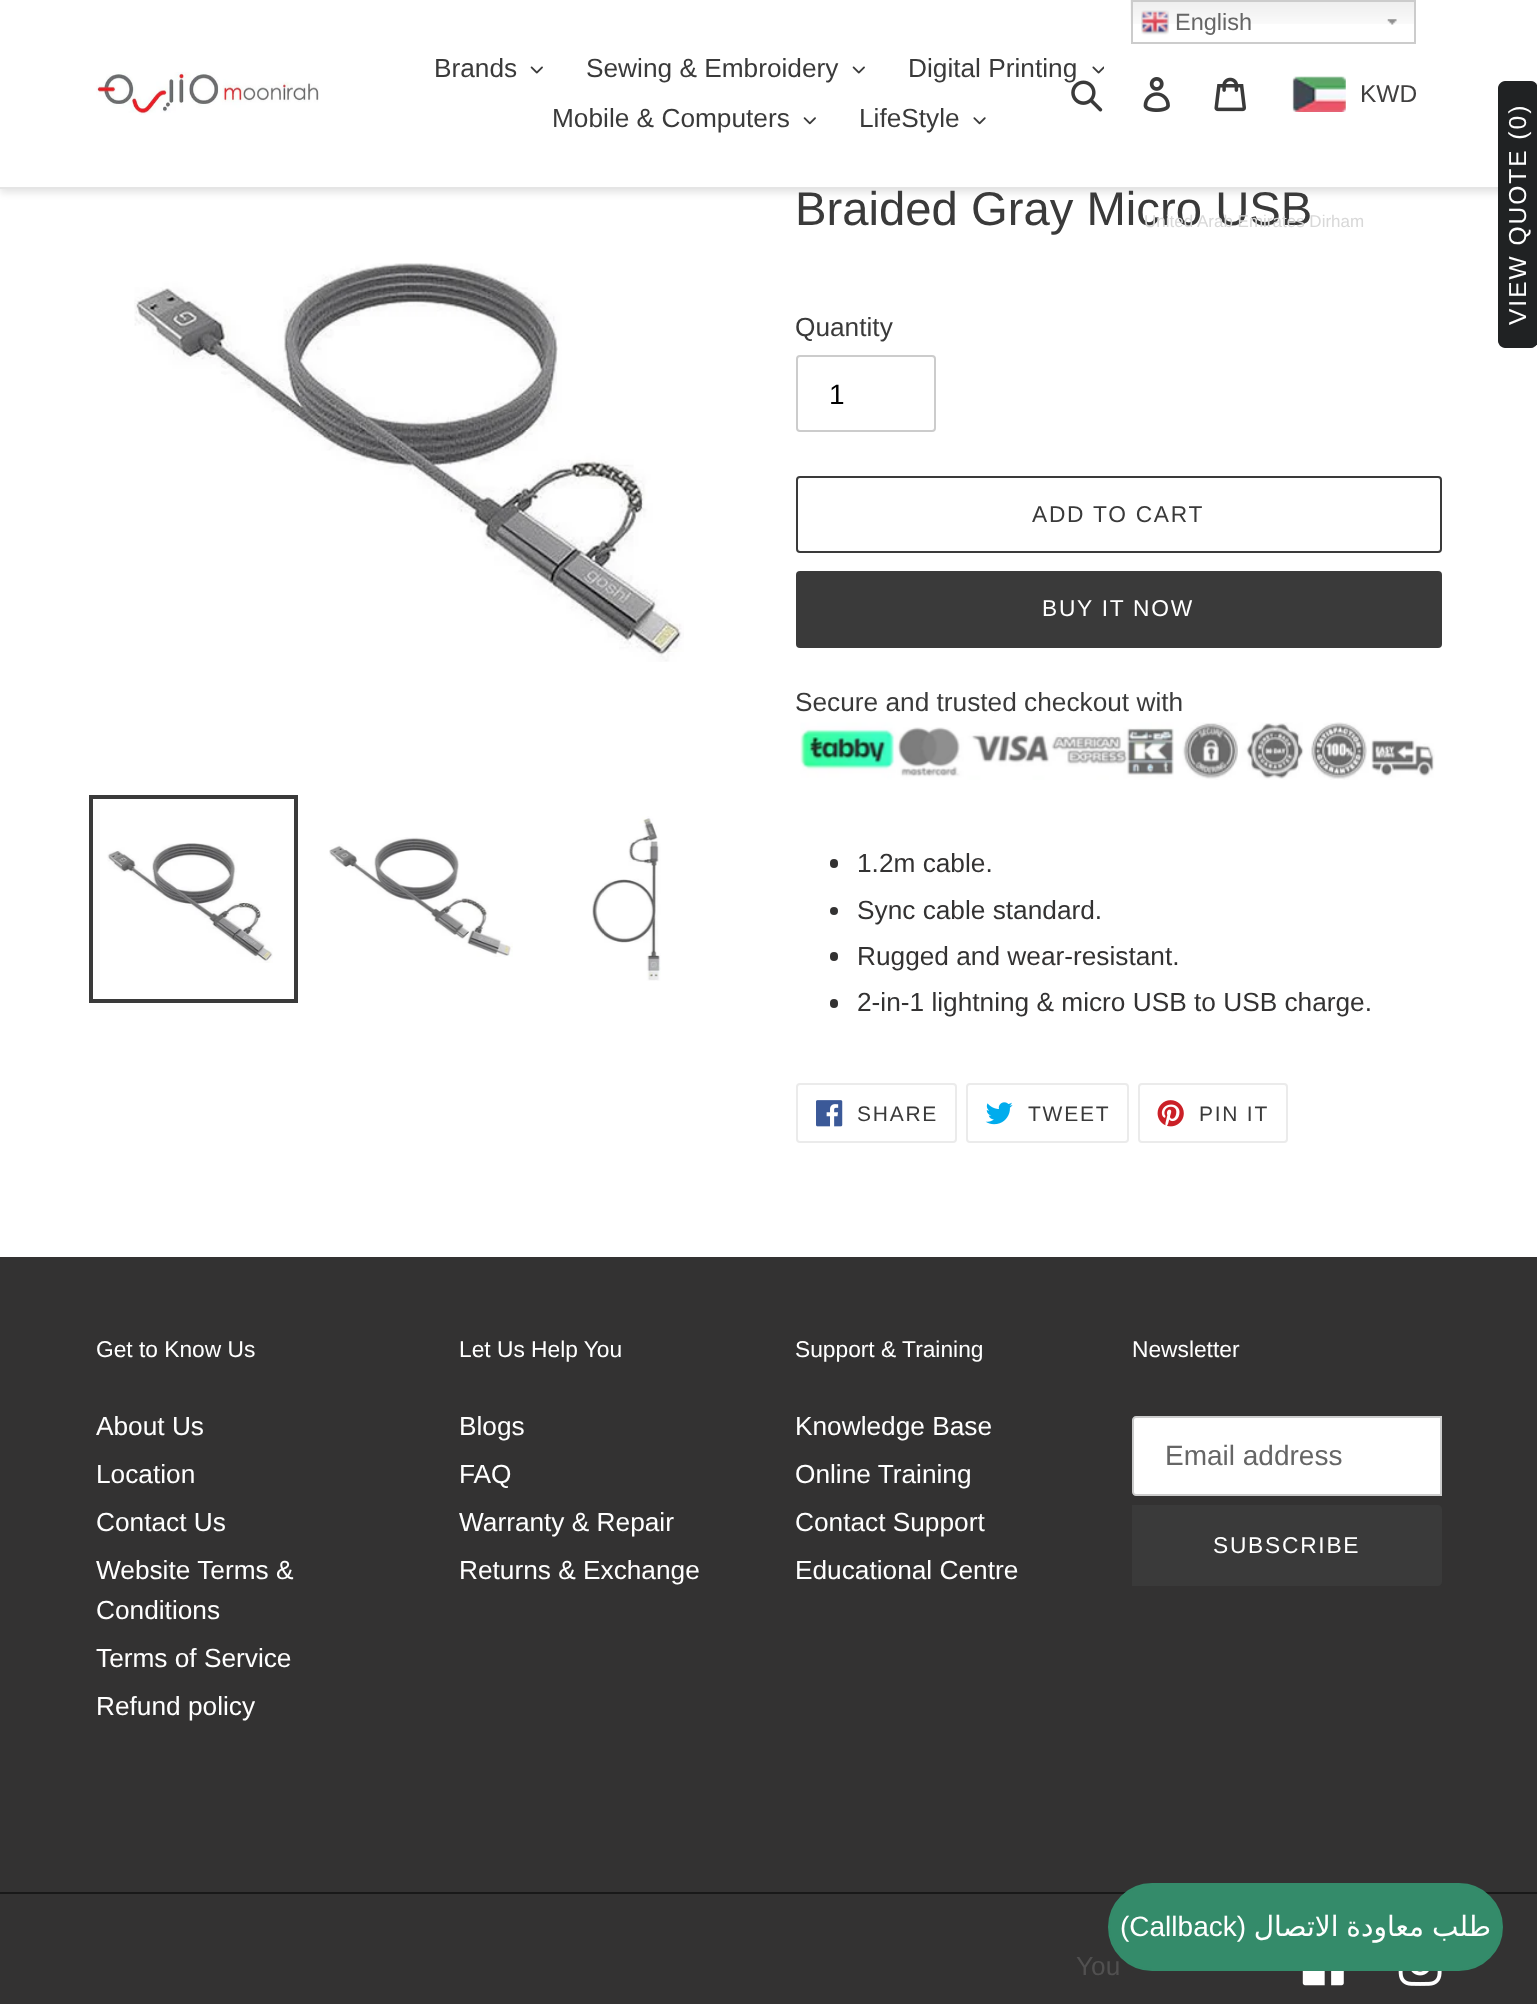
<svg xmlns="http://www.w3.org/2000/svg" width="1537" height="2004">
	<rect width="100%" height="100%" fill="#FFFFFF" />
	<rect x="0" y="4" width="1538" height="189" fill="#000000" fill-opacity="0.1" filter="blur(3.5px)" />
	<rect x="0" y="0" width="1537" height="187" fill="#FFFFFF" />
	<image x="1130" y="0" width="284" height="24" href="assets/img1.png" />
	<image x="1387" y="19" width="10" height="6" href="assets/img2.png" />
	<rect x="1132" y="1" width="283" height="42" fill="none" stroke="#CCCCCC" stroke-width="2" />
	<image x="1141" y="10" width="28" height="25" href="assets/img3.png" />
	<text x="1175" y="30" font-family="Liberation Sans" font-size="23.5" fill="#666666">English</text>
	<rect x="0" y="187" width="1498" height="2" fill="#E5E5E5" />
	<image x="96" y="72" width="223" height="43" href="assets/img4.png" />
	<text x="434" y="77" font-family="Liberation Sans" font-size="26.25" fill="#3A3A3A">Brands</text>
	<image x="530" y="66" width="13" height="8" href="assets/img5.png" />
	<text x="586" y="77" font-family="Liberation Sans" font-size="26.25" fill="#3A3A3A">Sewing &amp; Embroidery</text>
	<image x="852" y="66" width="13" height="8" href="assets/img5.png" />
	<text x="908" y="77" font-family="Liberation Sans" font-size="26.25" fill="#3A3A3A">Digital Printing</text>
	<image x="1092" y="66" width="12" height="8" href="assets/img6.png" />
	<text x="552" y="127" font-family="Liberation Sans" font-size="26.25" fill="#3A3A3A">Mobile &amp; Computers</text>
	<image x="803" y="117" width="13" height="8" href="assets/img7.png" />
	<text x="859" y="127" font-family="Liberation Sans" font-size="26.25" fill="#3A3A3A">LifeStyle</text>
	<image x="973" y="117" width="13" height="8" href="assets/img8.png" />
	<image x="1071" y="80" width="32" height="32" href="assets/img9.png" />
	<image x="1143" y="77" width="27" height="35" href="assets/img10.png" />
	<image x="1214" y="77" width="32" height="35" href="assets/img11.png" />
	<image x="1292" y="76" width="54" height="36" href="assets/img12.png" />
	<text x="1360" y="102" font-family="Liberation Sans" font-size="24.5" fill="#403F3F">KWD</text>
	<text x="795" y="225" font-family="Liberation Sans" font-size="47.25" fill="#3A3A3A">Braided Gray Micro USB</text>
	<text x="1144" y="227" font-family="Liberation Sans" font-size="17" fill="#D8D8D8">United Arab Emirates Dirham</text>
	<path d="M1498 341V88C1498 85 1501 81 1505 81H1531C1535 81 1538 85 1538 88V341C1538 344 1535 348 1531 348H1505C1501 348 1498 344 1498 341Z" fill="#202223" />
	<text x="1526" y="325" transform="rotate(-90 1526 325)" font-family="Liberation Sans" font-size="24.5" letter-spacing="2" fill="#FFFFFF">VIEW QUOTE (0)</text>
	<rect x="0" y="1257" width="1537" height="747" fill="#333232" />
	<text x="1076" y="1975" font-family="Liberation Sans" font-size="26.25" fill="#515050">You</text>
	<image x="134" y="263" width="550" height="399" href="assets/img13.png" />
	<rect x="91" y="797" width="205" height="204" fill="none" stroke="#3A3A3A" stroke-width="4" />
	<image x="107" y="843" width="166" height="120" href="assets/img14.png" />
	<image x="329" y="837" width="184" height="120" href="assets/img15.png" />
	<image x="592" y="816" width="69" height="165" href="assets/img16.png" />
	<text x="795" y="336" font-family="Liberation Sans" font-size="26.25" fill="#3A3A3A">Quantity</text>
	<rect x="797" y="356" width="138" height="75" rx="3" fill="none" stroke="#CCCCCC" stroke-width="2" />
	<text x="829" y="404" font-family="Liberation Sans" font-size="28" fill="#000000">1</text>
	<rect x="797" y="477" width="644" height="75" rx="3" fill="none" stroke="#3A3A3A" stroke-width="2" />
	<text x="1032" y="522" font-family="Liberation Sans" font-size="22.75" letter-spacing="1.75" fill="#3A3A3A">ADD TO CART</text>
	<rect x="796" y="571" width="646" height="77" rx="4" fill="#3A3A3A" />
	<text x="1042" y="616" font-family="Liberation Sans" font-size="22.75" letter-spacing="1.75" fill="#FFFFFF">BUY IT NOW</text>
	<text x="795" y="711" font-family="Liberation Sans" font-size="26.25" fill="#3A3A3A">Secure and trusted checkout with</text>
	<image x="800" y="722" width="635" height="58" href="assets/img17.png" />
	<rect x="830" y="859" width="8" height="9" rx="4" fill="#333232" />
	<text x="857" y="872" font-family="Liberation Sans" font-size="26.25" fill="#333232">1.2m cable.</text>
	<circle cx="834" cy="911" r="4" fill="#333232" />
	<text x="857" y="919" font-family="Liberation Sans" font-size="26.25" fill="#333232">Sync cable standard.</text>
	<rect x="830" y="952" width="8" height="9" rx="4" fill="#333232" />
	<text x="857" y="965" font-family="Liberation Sans" font-size="26.25" fill="#333232">Rugged and wear-resistant.</text>
	<rect x="830" y="999" width="8" height="9" rx="4" fill="#333232" />
	<text x="857" y="1011" font-family="Liberation Sans" font-size="26.25" fill="#333232">2-in-1 lightning &amp; micro USB to USB charge.</text>
	<rect x="797" y="1084" width="159" height="58" rx="3" fill="none" stroke="#EBEBEB" stroke-width="2" />
	<image x="816" y="1100" width="27" height="27" href="assets/img18.png" />
	<text x="857" y="1121" font-family="Liberation Sans" font-size="21" letter-spacing="1.75" fill="#3A3A3A">SHARE</text>
	<rect x="967" y="1084" width="161" height="58" rx="3" fill="none" stroke="#EBEBEB" stroke-width="2" />
	<image x="985" y="1102" width="28" height="23" href="assets/img19.png" />
	<text x="1028" y="1121" font-family="Liberation Sans" font-size="21" letter-spacing="1.75" fill="#3A3A3A">TWEET</text>
	<rect x="1139" y="1084" width="148" height="58" rx="3" fill="none" stroke="#EBEBEB" stroke-width="2" />
	<image x="1157" y="1100" width="27" height="27" href="assets/img20.png" />
	<text x="1199" y="1121" font-family="Liberation Sans" font-size="21" letter-spacing="1.75" fill="#3A3A3A">PIN IT</text>
	<text x="96" y="1357" font-family="Liberation Sans" font-size="22.75" fill="#FFFFFF">Get to Know Us</text>
	<g font-family="Liberation Sans" font-size="26.25" fill="#FFFFFF">
		<text x="96" y="1435">About Us</text>
		<text x="96" y="1483">Location</text>
		<text x="96" y="1531">Contact Us</text>
		<text x="96" y="1579">Website Terms &amp;</text>
		<text x="96" y="1619">Conditions</text>
		<text x="96" y="1667">Terms of Service</text>
		<text x="96" y="1715">Refund policy</text>
	</g>
	<text x="459" y="1357" font-family="Liberation Sans" font-size="22.75" fill="#FFFFFF">Let Us Help You</text>
	<g font-family="Liberation Sans" font-size="26.25" fill="#FFFFFF">
		<text x="459" y="1435">Blogs</text>
		<text x="459" y="1483">FAQ</text>
		<text x="459" y="1531">Warranty &amp; Repair</text>
		<text x="459" y="1579">Returns &amp; Exchange</text>
	</g>
	<text x="795" y="1357" font-family="Liberation Sans" font-size="22.75" fill="#FFFFFF">Support &amp; Training</text>
	<g font-family="Liberation Sans" font-size="26.25" fill="#FFFFFF">
		<text x="795" y="1435">Knowledge Base</text>
		<text x="795" y="1483">Online Training</text>
		<text x="795" y="1531">Contact Support</text>
		<text x="795" y="1579">Educational Centre</text>
	</g>
	<text x="1132" y="1357" font-family="Liberation Sans" font-size="22.75" fill="#FFFFFF">Newsletter</text>
	<path d="M1136 1417H1441V1495H1136C1134.5 1495 1133 1493.5 1133 1492V1420C1133 1418.5 1134.5 1417 1136 1417Z" fill="#FFFFFF" stroke="#CCCCCC" stroke-width="2" />
	<text x="1165" y="1465" font-family="Liberation Sans" font-size="28" fill="#666666">Email address</text>
	<path d="M1132 1505H1438C1440 1505 1442 1507 1442 1509V1582C1442 1584 1440 1586 1438 1586H1132Z" fill="#3A3A3A" />
	<text x="1213" y="1553" font-family="Liberation Sans" font-size="22.75" letter-spacing="1.75" fill="#FFFFFF">SUBSCRIBE</text>
	<rect x="0" y="1892" width="1537" height="2" fill="#191919" />
	<image x="1302" y="1971" width="42" height="15" href="assets/img21.png" />
	<image x="1398" y="1971" width="44" height="15" href="assets/img22.png" />
	<rect x="1109" y="1884" width="393" height="86" rx="43" fill="#348B6A" stroke="#348B6A" stroke-width="2" />
	<text x="1120" y="1936" font-family="Liberation Sans" font-size="28" fill="#FFFFFF">(Callback)</text>
	<text x="1491" y="1936" word-spacing="-1" font-family="DejaVu Sans" font-size="28" direction="rtl" fill="#FFFFFF">طلب معاودة الاتصال</text>
</svg>
